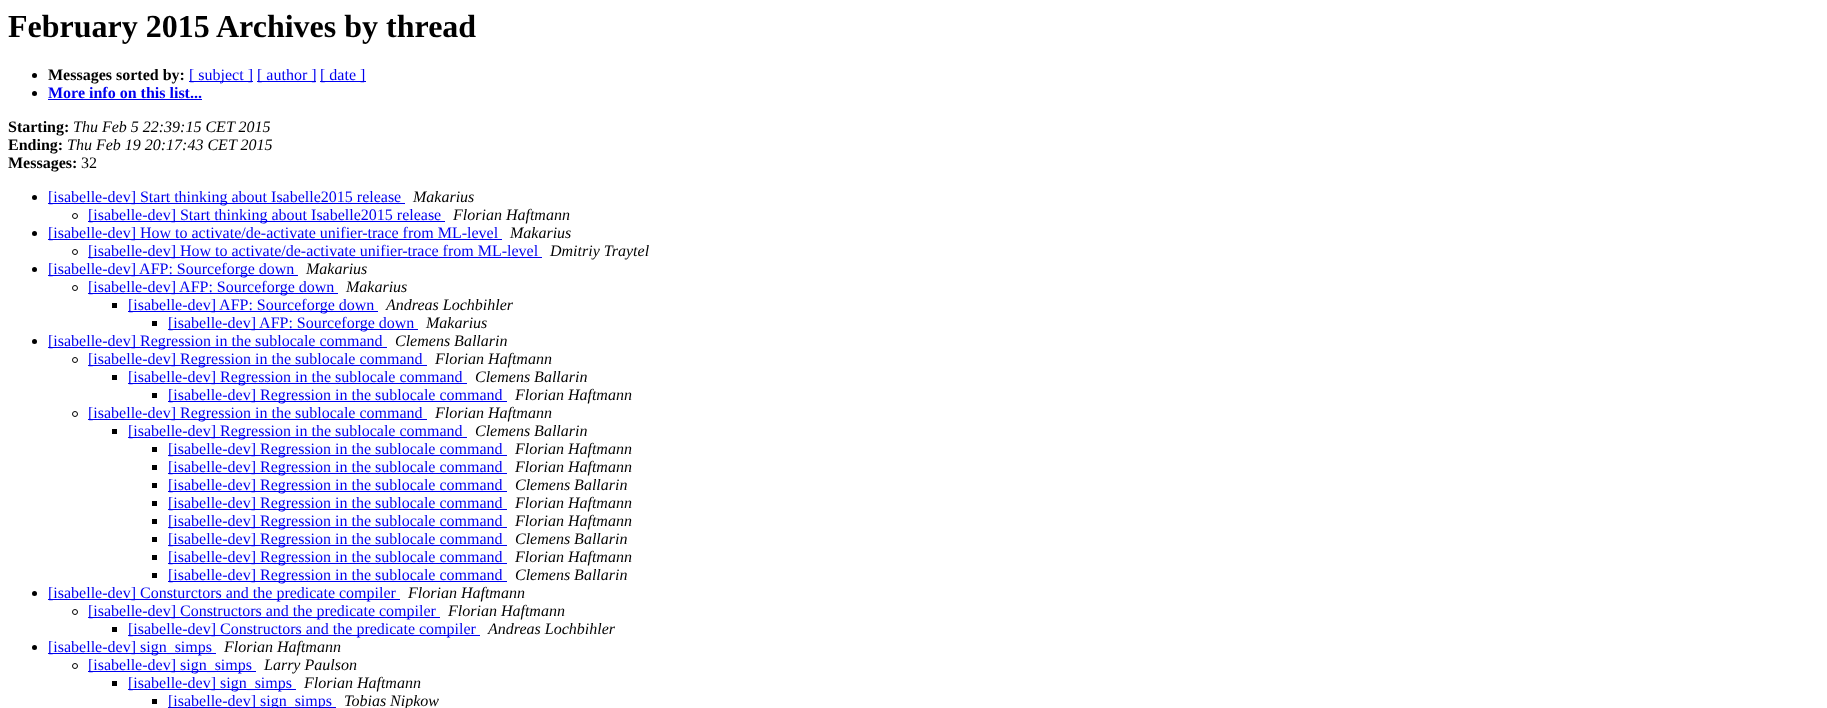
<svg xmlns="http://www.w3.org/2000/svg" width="1827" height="708">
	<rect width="100%" height="100%" fill="#FFFFFF" />
	<text x="8" y="37" font-family="Liberation Serif" font-size="32" font-weight="700" fill="#000000">February 2015 Archives by thread</text>
	<circle cx="34.5" cy="75.5" r="2.5" fill="#000000" />
	<text x="48" y="80" font-family="Liberation Serif" font-size="16" font-weight="700" fill="#000000">Messages sorted by:</text>
	<rect x="189" y="81" width="64" height="1" fill="#0000EE" />
	<text x="189" y="80" font-family="Liberation Serif" font-size="16" fill="#0000EE">[ subject ]</text>
	<rect x="257" y="81" width="59" height="1" fill="#0000EE" />
	<text x="257" y="80" font-family="Liberation Serif" font-size="16" fill="#0000EE">[ author ]</text>
	<rect x="320" y="81" width="46" height="1" fill="#0000EE" />
	<text x="320" y="80" font-family="Liberation Serif" font-size="16" fill="#0000EE">[ date ]</text>
	<circle cx="34.5" cy="93.5" r="2.5" fill="#000000" />
	<text x="48" y="98" font-family="Liberation Serif" font-size="16" font-weight="700" fill="#0000EE">More info on this list...</text>
	<rect x="48" y="99" width="154" height="1" fill="#0000EE" />
	<text x="8" y="132" font-family="Liberation Serif" font-size="16" font-weight="700" fill="#000000">Starting:</text>
	<text x="73" y="132" font-family="Liberation Serif" font-size="16" font-style="italic" fill="#000000">Thu Feb 5 22:39:15 CET 2015</text>
	<text x="8" y="150" font-family="Liberation Serif" font-size="16" font-weight="700" fill="#000000">Ending:</text>
	<text x="67" y="150" font-family="Liberation Serif" font-size="16" font-style="italic" fill="#000000">Thu Feb 19 20:17:43 CET 2015</text>
	<text x="8" y="168" font-family="Liberation Serif" font-size="16" font-weight="700" fill="#000000">Messages:</text>
	<text x="81" y="168" font-family="Liberation Serif" font-size="16" fill="#000000">32</text>
	<circle cx="34.5" cy="197.5" r="2.5" fill="#000000" />
	<rect x="48" y="203" width="357" height="1" fill="#0000EE" />
	<text x="48" y="202" font-family="Liberation Serif" font-size="16" fill="#0000EE">[isabelle-dev] Start thinking about Isabelle2015 release</text>
	<text x="413" y="202" font-family="Liberation Serif" font-size="16" font-style="italic" fill="#000000">Makarius</text>
	<circle cx="75" cy="216" r="2.5" fill="none" stroke="#000000" />
	<rect x="88" y="221" width="357" height="1" fill="#0000EE" />
	<text x="88" y="220" font-family="Liberation Serif" font-size="16" fill="#0000EE">[isabelle-dev] Start thinking about Isabelle2015 release</text>
	<text x="453" y="220" font-family="Liberation Serif" font-size="16" font-style="italic" fill="#000000">Florian Haftmann</text>
	<circle cx="34.5" cy="233.5" r="2.5" fill="#000000" />
	<rect x="48" y="239" width="454" height="1" fill="#0000EE" />
	<text x="48" y="238" font-family="Liberation Serif" font-size="16" fill="#0000EE">[isabelle-dev] How to activate/de-activate unifier-trace from ML-level</text>
	<text x="510" y="238" font-family="Liberation Serif" font-size="16" font-style="italic" fill="#000000">Makarius</text>
	<circle cx="75" cy="252" r="2.5" fill="none" stroke="#000000" />
	<rect x="88" y="257" width="454" height="1" fill="#0000EE" />
	<text x="88" y="256" font-family="Liberation Serif" font-size="16" fill="#0000EE">[isabelle-dev] How to activate/de-activate unifier-trace from ML-level</text>
	<text x="550" y="256" font-family="Liberation Serif" font-size="16" font-style="italic" fill="#000000">Dmitriy Traytel</text>
	<circle cx="34.5" cy="269.5" r="2.5" fill="#000000" />
	<rect x="48" y="275" width="250" height="1" fill="#0000EE" />
	<text x="48" y="274" font-family="Liberation Serif" font-size="16" fill="#0000EE">[isabelle-dev] AFP: Sourceforge down</text>
	<text x="306" y="274" font-family="Liberation Serif" font-size="16" font-style="italic" fill="#000000">Makarius</text>
	<circle cx="75" cy="288" r="2.5" fill="none" stroke="#000000" />
	<rect x="88" y="293" width="250" height="1" fill="#0000EE" />
	<text x="88" y="292" font-family="Liberation Serif" font-size="16" fill="#0000EE">[isabelle-dev] AFP: Sourceforge down</text>
	<text x="346" y="292" font-family="Liberation Serif" font-size="16" font-style="italic" fill="#000000">Makarius</text>
	<rect x="112" y="303" width="5" height="5" fill="#000000" />
	<rect x="128" y="311" width="250" height="1" fill="#0000EE" />
	<text x="128" y="310" font-family="Liberation Serif" font-size="16" fill="#0000EE">[isabelle-dev] AFP: Sourceforge down</text>
	<text x="386" y="310" font-family="Liberation Serif" font-size="16" font-style="italic" fill="#000000">Andreas Lochbihler</text>
	<rect x="152" y="321" width="5" height="5" fill="#000000" />
	<rect x="168" y="329" width="250" height="1" fill="#0000EE" />
	<text x="168" y="328" font-family="Liberation Serif" font-size="16" fill="#0000EE">[isabelle-dev] AFP: Sourceforge down</text>
	<text x="426" y="328" font-family="Liberation Serif" font-size="16" font-style="italic" fill="#000000">Makarius</text>
	<circle cx="34.5" cy="341.5" r="2.5" fill="#000000" />
	<rect x="48" y="347" width="339" height="1" fill="#0000EE" />
	<text x="48" y="346" font-family="Liberation Serif" font-size="16" fill="#0000EE">[isabelle-dev] Regression in the sublocale command</text>
	<text x="395" y="346" font-family="Liberation Serif" font-size="16" font-style="italic" fill="#000000">Clemens Ballarin</text>
	<circle cx="75" cy="360" r="2.5" fill="none" stroke="#000000" />
	<rect x="88" y="365" width="339" height="1" fill="#0000EE" />
	<text x="88" y="364" font-family="Liberation Serif" font-size="16" fill="#0000EE">[isabelle-dev] Regression in the sublocale command</text>
	<text x="435" y="364" font-family="Liberation Serif" font-size="16" font-style="italic" fill="#000000">Florian Haftmann</text>
	<rect x="112" y="375" width="5" height="5" fill="#000000" />
	<rect x="128" y="383" width="339" height="1" fill="#0000EE" />
	<text x="128" y="382" font-family="Liberation Serif" font-size="16" fill="#0000EE">[isabelle-dev] Regression in the sublocale command</text>
	<text x="475" y="382" font-family="Liberation Serif" font-size="16" font-style="italic" fill="#000000">Clemens Ballarin</text>
	<rect x="152" y="393" width="5" height="5" fill="#000000" />
	<rect x="168" y="401" width="339" height="1" fill="#0000EE" />
	<text x="168" y="400" font-family="Liberation Serif" font-size="16" fill="#0000EE">[isabelle-dev] Regression in the sublocale command</text>
	<text x="515" y="400" font-family="Liberation Serif" font-size="16" font-style="italic" fill="#000000">Florian Haftmann</text>
	<circle cx="75" cy="414" r="2.5" fill="none" stroke="#000000" />
	<rect x="88" y="419" width="339" height="1" fill="#0000EE" />
	<text x="88" y="418" font-family="Liberation Serif" font-size="16" fill="#0000EE">[isabelle-dev] Regression in the sublocale command</text>
	<text x="435" y="418" font-family="Liberation Serif" font-size="16" font-style="italic" fill="#000000">Florian Haftmann</text>
	<rect x="112" y="429" width="5" height="5" fill="#000000" />
	<rect x="128" y="437" width="339" height="1" fill="#0000EE" />
	<text x="128" y="436" font-family="Liberation Serif" font-size="16" fill="#0000EE">[isabelle-dev] Regression in the sublocale command</text>
	<text x="475" y="436" font-family="Liberation Serif" font-size="16" font-style="italic" fill="#000000">Clemens Ballarin</text>
	<rect x="152" y="447" width="5" height="5" fill="#000000" />
	<rect x="168" y="455" width="339" height="1" fill="#0000EE" />
	<text x="168" y="454" font-family="Liberation Serif" font-size="16" fill="#0000EE">[isabelle-dev] Regression in the sublocale command</text>
	<text x="515" y="454" font-family="Liberation Serif" font-size="16" font-style="italic" fill="#000000">Florian Haftmann</text>
	<rect x="152" y="465" width="5" height="5" fill="#000000" />
	<rect x="168" y="473" width="339" height="1" fill="#0000EE" />
	<text x="168" y="472" font-family="Liberation Serif" font-size="16" fill="#0000EE">[isabelle-dev] Regression in the sublocale command</text>
	<text x="515" y="472" font-family="Liberation Serif" font-size="16" font-style="italic" fill="#000000">Florian Haftmann</text>
	<rect x="152" y="483" width="5" height="5" fill="#000000" />
	<rect x="168" y="491" width="339" height="1" fill="#0000EE" />
	<text x="168" y="490" font-family="Liberation Serif" font-size="16" fill="#0000EE">[isabelle-dev] Regression in the sublocale command</text>
	<text x="515" y="490" font-family="Liberation Serif" font-size="16" font-style="italic" fill="#000000">Clemens Ballarin</text>
	<rect x="152" y="501" width="5" height="5" fill="#000000" />
	<rect x="168" y="509" width="339" height="1" fill="#0000EE" />
	<text x="168" y="508" font-family="Liberation Serif" font-size="16" fill="#0000EE">[isabelle-dev] Regression in the sublocale command</text>
	<text x="515" y="508" font-family="Liberation Serif" font-size="16" font-style="italic" fill="#000000">Florian Haftmann</text>
	<rect x="152" y="519" width="5" height="5" fill="#000000" />
	<rect x="168" y="527" width="339" height="1" fill="#0000EE" />
	<text x="168" y="526" font-family="Liberation Serif" font-size="16" fill="#0000EE">[isabelle-dev] Regression in the sublocale command</text>
	<text x="515" y="526" font-family="Liberation Serif" font-size="16" font-style="italic" fill="#000000">Florian Haftmann</text>
	<rect x="152" y="537" width="5" height="5" fill="#000000" />
	<rect x="168" y="545" width="339" height="1" fill="#0000EE" />
	<text x="168" y="544" font-family="Liberation Serif" font-size="16" fill="#0000EE">[isabelle-dev] Regression in the sublocale command</text>
	<text x="515" y="544" font-family="Liberation Serif" font-size="16" font-style="italic" fill="#000000">Clemens Ballarin</text>
	<rect x="152" y="555" width="5" height="5" fill="#000000" />
	<rect x="168" y="563" width="339" height="1" fill="#0000EE" />
	<text x="168" y="562" font-family="Liberation Serif" font-size="16" fill="#0000EE">[isabelle-dev] Regression in the sublocale command</text>
	<text x="515" y="562" font-family="Liberation Serif" font-size="16" font-style="italic" fill="#000000">Florian Haftmann</text>
	<rect x="152" y="573" width="5" height="5" fill="#000000" />
	<rect x="168" y="581" width="339" height="1" fill="#0000EE" />
	<text x="168" y="580" font-family="Liberation Serif" font-size="16" fill="#0000EE">[isabelle-dev] Regression in the sublocale command</text>
	<text x="515" y="580" font-family="Liberation Serif" font-size="16" font-style="italic" fill="#000000">Clemens Ballarin</text>
	<circle cx="34.5" cy="593.5" r="2.5" fill="#000000" />
	<rect x="48" y="599" width="352" height="1" fill="#0000EE" />
	<text x="48" y="598" font-family="Liberation Serif" font-size="16" fill="#0000EE">[isabelle-dev] Consturctors and the predicate compiler</text>
	<text x="408" y="598" font-family="Liberation Serif" font-size="16" font-style="italic" fill="#000000">Florian Haftmann</text>
	<circle cx="75" cy="612" r="2.5" fill="none" stroke="#000000" />
	<rect x="88" y="617" width="352" height="1" fill="#0000EE" />
	<text x="88" y="616" font-family="Liberation Serif" font-size="16" fill="#0000EE">[isabelle-dev] Constructors and the predicate compiler</text>
	<text x="448" y="616" font-family="Liberation Serif" font-size="16" font-style="italic" fill="#000000">Florian Haftmann</text>
	<rect x="112" y="627" width="5" height="5" fill="#000000" />
	<rect x="128" y="635" width="352" height="1" fill="#0000EE" />
	<text x="128" y="634" font-family="Liberation Serif" font-size="16" fill="#0000EE">[isabelle-dev] Constructors and the predicate compiler</text>
	<text x="488" y="634" font-family="Liberation Serif" font-size="16" font-style="italic" fill="#000000">Andreas Lochbihler</text>
	<circle cx="34.5" cy="647.5" r="2.5" fill="#000000" />
	<rect x="48" y="653" width="168" height="1" fill="#0000EE" />
	<text x="48" y="652" font-family="Liberation Serif" font-size="16" fill="#0000EE">[isabelle-dev] sign_simps</text>
	<text x="224" y="652" font-family="Liberation Serif" font-size="16" font-style="italic" fill="#000000">Florian Haftmann</text>
	<circle cx="75" cy="666" r="2.5" fill="none" stroke="#000000" />
	<rect x="88" y="671" width="168" height="1" fill="#0000EE" />
	<text x="88" y="670" font-family="Liberation Serif" font-size="16" fill="#0000EE">[isabelle-dev] sign_simps</text>
	<text x="264" y="670" font-family="Liberation Serif" font-size="16" font-style="italic" fill="#000000">Larry Paulson</text>
	<rect x="112" y="681" width="5" height="5" fill="#000000" />
	<rect x="128" y="689" width="168" height="1" fill="#0000EE" />
	<text x="128" y="688" font-family="Liberation Serif" font-size="16" fill="#0000EE">[isabelle-dev] sign_simps</text>
	<text x="304" y="688" font-family="Liberation Serif" font-size="16" font-style="italic" fill="#000000">Florian Haftmann</text>
	<rect x="152" y="699" width="5" height="5" fill="#000000" />
	<rect x="168" y="707" width="168" height="1" fill="#0000EE" />
	<text x="168" y="706" font-family="Liberation Serif" font-size="16" fill="#0000EE">[isabelle-dev] sign_simps</text>
	<text x="344" y="706" font-family="Liberation Serif" font-size="16" font-style="italic" fill="#000000">Tobias Nipkow</text>
</svg>
